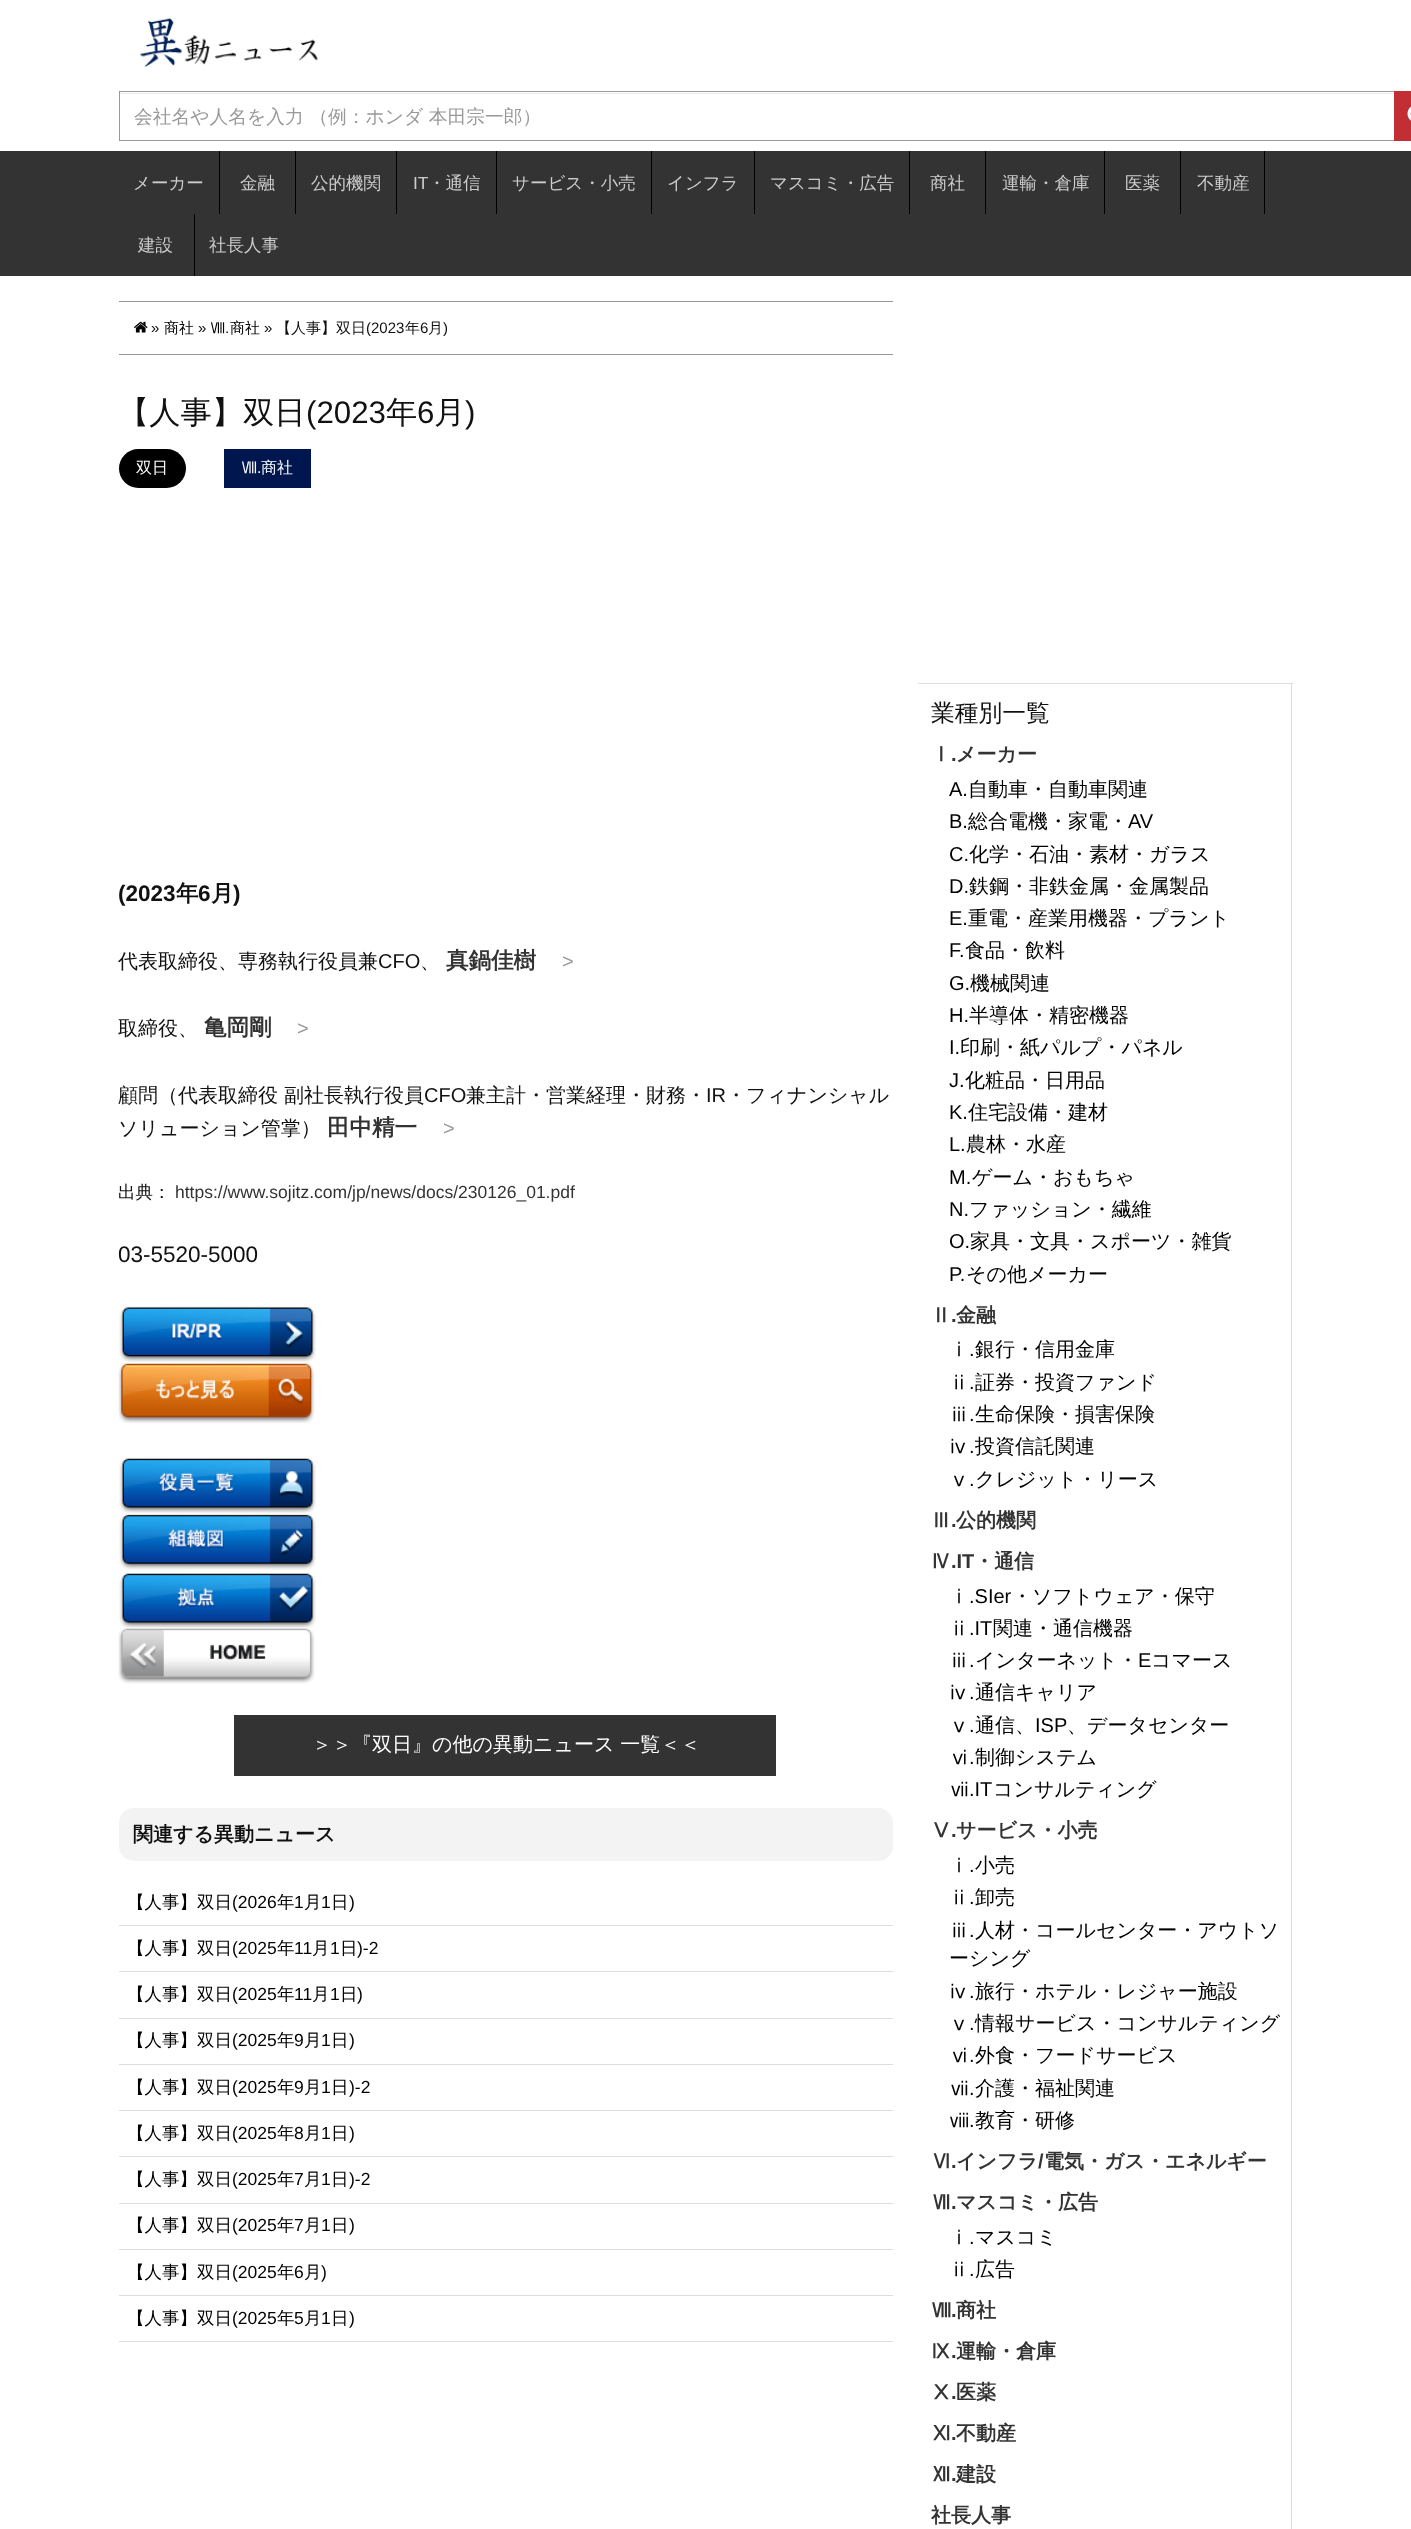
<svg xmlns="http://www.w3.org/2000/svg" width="1411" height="2529">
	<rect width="100%" height="100%" fill="#FFFFFF" />
	<image x="139" y="17" width="179" height="50" href="assets/img1.png" />
	<rect x="120" y="93" width="1274" height="1" fill="#ECECEC" />
	<rect x="119" y="91" width="1275" height="1" fill="#999999" />
	<rect x="119" y="140" width="1275" height="1" fill="#999999" />
	<rect x="119" y="91" width="1" height="50" fill="#999999" />
	<text x="134" y="123" font-family="WenQuanYi Zen Hei" font-size="18.75" font-weight="500" fill="#999999">会社名や人名を入力 （例：ホンダ 本田宗一郎）</text>
	<rect x="1394" y="91" width="17" height="50" fill="#C12E34" />
	<image x="1407" y="106" width="4" height="15" href="assets/img2.png" />
	<rect x="0" y="151" width="1411" height="125" fill="#333333" />
	<rect x="219" y="151" width="1" height="63" fill="#000000" />
	<text x="133" y="189" font-family="WenQuanYi Zen Hei" font-size="17.5" font-weight="500" fill="#CCCCCC">メーカー</text>
	<rect x="295" y="151" width="1" height="63" fill="#000000" />
	<text x="240" y="189" font-family="WenQuanYi Zen Hei" font-size="17.5" font-weight="500" fill="#CCCCCC">金融</text>
	<rect x="396" y="151" width="1" height="63" fill="#000000" />
	<text x="311" y="189" font-family="WenQuanYi Zen Hei" font-size="17.5" font-weight="500" fill="#CCCCCC">公的機関</text>
	<rect x="496" y="151" width="1" height="63" fill="#000000" />
	<text x="413" y="189" font-family="Liberation Sans" font-size="17.5" fill="#CCCCCC">IT</text>
	<text x="428" y="189" font-family="WenQuanYi Zen Hei" font-size="17.5" font-weight="500" fill="#CCCCCC">・通信</text>
	<rect x="651" y="151" width="1" height="63" fill="#000000" />
	<text x="512" y="189" font-family="WenQuanYi Zen Hei" font-size="17.5" font-weight="500" fill="#CCCCCC">サービス・小売</text>
	<rect x="754" y="151" width="1" height="63" fill="#000000" />
	<text x="667" y="189" font-family="WenQuanYi Zen Hei" font-size="17.5" font-weight="500" fill="#CCCCCC">インフラ</text>
	<rect x="909" y="151" width="1" height="63" fill="#000000" />
	<text x="770" y="189" font-family="WenQuanYi Zen Hei" font-size="17.5" font-weight="500" fill="#CCCCCC">マスコミ・広告</text>
	<rect x="985" y="151" width="1" height="63" fill="#000000" />
	<text x="930" y="189" font-family="WenQuanYi Zen Hei" font-size="17.5" font-weight="500" fill="#CCCCCC">商社</text>
	<rect x="1104" y="151" width="1" height="63" fill="#000000" />
	<text x="1002" y="189" font-family="WenQuanYi Zen Hei" font-size="17.5" font-weight="500" fill="#CCCCCC">運輸・倉庫</text>
	<rect x="1180" y="151" width="1" height="63" fill="#000000" />
	<text x="1125" y="189" font-family="WenQuanYi Zen Hei" font-size="17.5" font-weight="500" fill="#CCCCCC">医薬</text>
	<rect x="1264" y="151" width="1" height="63" fill="#000000" />
	<text x="1197" y="189" font-family="WenQuanYi Zen Hei" font-size="17.5" font-weight="500" fill="#CCCCCC">不動産</text>
	<rect x="194" y="214" width="1" height="62" fill="#000000" />
	<g font-family="WenQuanYi Zen Hei" font-size="17.5" font-weight="500" fill="#CCCCCC">
		<text x="138" y="251">建設</text>
		<text x="209" y="251">社長人事</text>
	</g>
	<rect x="119" y="301" width="774" height="1" fill="#999999" />
	<rect x="119" y="354" width="774" height="1" fill="#999999" />
	<image x="134" y="321" width="14" height="12" href="assets/img3.png" />
	<text x="151" y="333" font-family="Liberation Sans" font-size="15" fill="#111111">»</text>
	<text x="164" y="333" font-family="WenQuanYi Zen Hei" font-size="15" font-weight="500" fill="#000000">商社</text>
	<text x="198" y="333" font-family="Liberation Sans" font-size="15" fill="#111111">»</text>
	<text x="210" y="333" font-family="WenQuanYi Zen Hei" font-size="15" font-weight="500" fill="#000000">Ⅷ</text>
	<text x="225" y="333" font-family="Liberation Sans" font-size="15" fill="#000000">.</text>
	<text x="230" y="333" font-family="WenQuanYi Zen Hei" font-size="15" font-weight="500" fill="#000000">商社</text>
	<text x="264" y="333" font-family="Liberation Sans" font-size="15" fill="#111111">»</text>
	<text x="276" y="333" font-family="WenQuanYi Zen Hei" font-size="15" font-weight="500" fill="#111111">【人事】双日</text>
	<text x="366" y="333" font-family="Liberation Sans" font-size="15" fill="#111111">(2023</text>
	<text x="405" y="333" font-family="WenQuanYi Zen Hei" font-size="15" font-weight="500" fill="#111111">年</text>
	<text x="420" y="333" font-family="Liberation Sans" font-size="15" fill="#111111">6</text>
	<text x="428" y="333" font-family="WenQuanYi Zen Hei" font-size="15" font-weight="500" fill="#111111">月</text>
	<text x="443" y="333" font-family="Liberation Sans" font-size="15" fill="#111111">)</text>
	<text x="118" y="423" font-family="WenQuanYi Zen Hei" font-size="31.25" font-weight="500" fill="#111111">【人事】双日</text>
	<text x="306" y="423" font-family="Liberation Sans" font-size="31.25" fill="#111111">(2023</text>
	<text x="386" y="423" font-family="WenQuanYi Zen Hei" font-size="31.25" font-weight="500" fill="#111111">年</text>
	<text x="417" y="423" font-family="Liberation Sans" font-size="31.25" fill="#111111">6</text>
	<text x="434" y="423" font-family="WenQuanYi Zen Hei" font-size="31.25" font-weight="500" fill="#111111">月</text>
	<text x="465" y="423" font-family="Liberation Sans" font-size="31.25" fill="#111111">)</text>
	<rect x="119" y="449" width="67" height="39" rx="19.5" fill="#000000" />
	<text x="136" y="473" font-family="WenQuanYi Zen Hei" font-size="16" font-weight="500" fill="#FFFFFF">双日</text>
	<rect x="224" y="449" width="87" height="39" fill="#00164E" />
	<text x="241" y="473" font-family="WenQuanYi Zen Hei" font-size="16" font-weight="500" fill="#FFFFFF">Ⅷ</text>
	<text x="257" y="473" font-family="Liberation Sans" font-size="16" fill="#FFFFFF">.</text>
	<text x="261" y="473" font-family="WenQuanYi Zen Hei" font-size="16" font-weight="500" fill="#FFFFFF">商社</text>
	<text x="118" y="901" font-family="Liberation Sans" font-size="22.5" font-weight="700" fill="#111111">(2023</text>
	<text x="176" y="901" font-family="WenQuanYi Zen Hei" font-size="22.5" font-weight="700" fill="#111111">年</text>
	<text x="198" y="901" font-family="Liberation Sans" font-size="22.5" font-weight="700" fill="#111111">6</text>
	<text x="211" y="901" font-family="WenQuanYi Zen Hei" font-size="22.5" font-weight="700" fill="#111111">月</text>
	<text x="233" y="901" font-family="Liberation Sans" font-size="22.5" font-weight="700" fill="#111111">)</text>
	<text x="118" y="968" font-family="WenQuanYi Zen Hei" font-size="20" font-weight="500" fill="#111111">代表取締役、専務執行役員兼</text>
	<text x="378" y="968" font-family="Liberation Sans" font-size="20" fill="#111111">CFO</text>
	<text x="446" y="968" font-family="WenQuanYi Zen Hei" font-size="22.5" font-weight="700" fill="#333333">真鍋佳樹</text>
	<text x="562" y="968" font-family="Liberation Sans" font-size="20" fill="#999999">&gt;</text>
	<g font-family="WenQuanYi Zen Hei" font-size="20" font-weight="500" fill="#111111">
		<text x="420" y="968">、</text>
		<text x="118" y="1035">取締役、</text>
	</g>
	<text x="204" y="1035" font-family="WenQuanYi Zen Hei" font-size="22.5" font-weight="700" fill="#333333">亀岡剛</text>
	<text x="297" y="1035" font-family="Liberation Sans" font-size="20" fill="#999999">&gt;</text>
	<text x="118" y="1102" font-family="WenQuanYi Zen Hei" font-size="20" font-weight="500" fill="#111111">顧問（代表取締役 副社長執行役員</text>
	<text x="424" y="1102" font-family="Liberation Sans" font-size="20" fill="#111111">CFO</text>
	<text x="466" y="1102" font-family="WenQuanYi Zen Hei" font-size="20" font-weight="500" fill="#111111">兼主計・営業経理・財務・</text>
	<text x="706" y="1102" font-family="Liberation Sans" font-size="20" fill="#111111">IR</text>
	<g font-family="WenQuanYi Zen Hei" font-size="20" font-weight="500" fill="#111111">
		<text x="726" y="1102">・フィナンシャル</text>
		<text x="118" y="1135">ソリューション管掌）</text>
	</g>
	<text x="327" y="1135" font-family="WenQuanYi Zen Hei" font-size="22.5" font-weight="700" fill="#333333">田中精一</text>
	<text x="443" y="1135" font-family="Liberation Sans" font-size="20" fill="#999999">&gt;</text>
	<text x="118" y="1198" font-family="WenQuanYi Zen Hei" font-size="17.5" font-weight="500" fill="#111111">出典：</text>
	<text x="175" y="1198" font-family="Liberation Sans" font-size="17.5" fill="#333333">https://www.sojitz.com/jp/news/docs/230126_01.pdf</text>
	<text x="118" y="1262" font-family="Liberation Sans" font-size="22.5" fill="#111111">03-5520-5000</text>
	<image x="119" y="1306" width="197" height="57" href="assets/img4.png" />
	<image x="118" y="1363" width="197" height="60" href="assets/img5.png" />
	<image x="119" y="1457" width="197" height="57" href="assets/img6.png" />
	<image x="119" y="1514" width="197" height="56" href="assets/img7.png" />
	<image x="119" y="1573" width="197" height="55" href="assets/img8.png" />
	<image x="118" y="1628" width="197" height="56" href="assets/img9.png" />
	<rect x="234" y="1715" width="542" height="61" fill="#333333" />
	<text x="312" y="1751" font-family="WenQuanYi Zen Hei" font-size="20" font-weight="500" fill="#FFFFFF">＞＞『双日』の他の異動ニュース 一覧＜＜</text>
	<rect x="119" y="1808" width="774" height="53" rx="15" fill="#F3F3F3" />
	<text x="133" y="1841" font-family="WenQuanYi Zen Hei" font-size="20" font-weight="700" fill="#111111">関連する異動ニュース</text>
	<rect x="119" y="1925" width="774" height="1" fill="#DDDDDD" />
	<text x="127" y="1908" font-family="WenQuanYi Zen Hei" font-size="17.5" font-weight="500" fill="#000000">【人事】双日</text>
	<text x="232" y="1908" font-family="Liberation Sans" font-size="17.5" fill="#000000">(2026</text>
	<text x="277" y="1908" font-family="WenQuanYi Zen Hei" font-size="17.5" font-weight="500" fill="#000000">年</text>
	<text x="294" y="1908" font-family="Liberation Sans" font-size="17.5" fill="#000000">1</text>
	<text x="304" y="1908" font-family="WenQuanYi Zen Hei" font-size="17.5" font-weight="500" fill="#000000">月</text>
	<text x="321" y="1908" font-family="Liberation Sans" font-size="17.5" fill="#000000">1</text>
	<text x="331" y="1908" font-family="WenQuanYi Zen Hei" font-size="17.5" font-weight="500" fill="#000000">日</text>
	<text x="349" y="1908" font-family="Liberation Sans" font-size="17.5" fill="#000000">)</text>
	<rect x="119" y="1971" width="774" height="1" fill="#DDDDDD" />
	<text x="127" y="1954" font-family="WenQuanYi Zen Hei" font-size="17.5" font-weight="500" fill="#000000">【人事】双日</text>
	<text x="232" y="1954" font-family="Liberation Sans" font-size="17.5" fill="#000000">(2025</text>
	<text x="277" y="1954" font-family="WenQuanYi Zen Hei" font-size="17.5" font-weight="500" fill="#000000">年</text>
	<text x="294" y="1954" font-family="Liberation Sans" font-size="17.5" fill="#000000">11</text>
	<text x="312" y="1954" font-family="WenQuanYi Zen Hei" font-size="17.5" font-weight="500" fill="#000000">月</text>
	<text x="330" y="1954" font-family="Liberation Sans" font-size="17.5" fill="#000000">1</text>
	<text x="340" y="1954" font-family="WenQuanYi Zen Hei" font-size="17.5" font-weight="500" fill="#000000">日</text>
	<text x="357" y="1954" font-family="Liberation Sans" font-size="17.5" fill="#000000">)-2</text>
	<rect x="119" y="2018" width="774" height="1" fill="#DDDDDD" />
	<text x="127" y="2000" font-family="WenQuanYi Zen Hei" font-size="17.5" font-weight="500" fill="#000000">【人事】双日</text>
	<text x="232" y="2000" font-family="Liberation Sans" font-size="17.5" fill="#000000">(2025</text>
	<text x="277" y="2000" font-family="WenQuanYi Zen Hei" font-size="17.5" font-weight="500" fill="#000000">年</text>
	<text x="294" y="2000" font-family="Liberation Sans" font-size="17.5" fill="#000000">11</text>
	<text x="312" y="2000" font-family="WenQuanYi Zen Hei" font-size="17.5" font-weight="500" fill="#000000">月</text>
	<text x="330" y="2000" font-family="Liberation Sans" font-size="17.5" fill="#000000">1</text>
	<text x="340" y="2000" font-family="WenQuanYi Zen Hei" font-size="17.5" font-weight="500" fill="#000000">日</text>
	<text x="357" y="2000" font-family="Liberation Sans" font-size="17.5" fill="#000000">)</text>
	<rect x="119" y="2064" width="774" height="1" fill="#DDDDDD" />
	<text x="127" y="2046" font-family="WenQuanYi Zen Hei" font-size="17.5" font-weight="500" fill="#000000">【人事】双日</text>
	<text x="232" y="2046" font-family="Liberation Sans" font-size="17.5" fill="#000000">(2025</text>
	<text x="277" y="2046" font-family="WenQuanYi Zen Hei" font-size="17.5" font-weight="500" fill="#000000">年</text>
	<text x="294" y="2046" font-family="Liberation Sans" font-size="17.5" fill="#000000">9</text>
	<text x="304" y="2046" font-family="WenQuanYi Zen Hei" font-size="17.5" font-weight="500" fill="#000000">月</text>
	<text x="321" y="2046" font-family="Liberation Sans" font-size="17.5" fill="#000000">1</text>
	<text x="331" y="2046" font-family="WenQuanYi Zen Hei" font-size="17.5" font-weight="500" fill="#000000">日</text>
	<text x="349" y="2046" font-family="Liberation Sans" font-size="17.5" fill="#000000">)</text>
	<rect x="119" y="2110" width="774" height="1" fill="#DDDDDD" />
	<text x="127" y="2093" font-family="WenQuanYi Zen Hei" font-size="17.5" font-weight="500" fill="#000000">【人事】双日</text>
	<text x="232" y="2093" font-family="Liberation Sans" font-size="17.5" fill="#000000">(2025</text>
	<text x="277" y="2093" font-family="WenQuanYi Zen Hei" font-size="17.5" font-weight="500" fill="#000000">年</text>
	<text x="294" y="2093" font-family="Liberation Sans" font-size="17.5" fill="#000000">9</text>
	<text x="304" y="2093" font-family="WenQuanYi Zen Hei" font-size="17.5" font-weight="500" fill="#000000">月</text>
	<text x="321" y="2093" font-family="Liberation Sans" font-size="17.5" fill="#000000">1</text>
	<text x="331" y="2093" font-family="WenQuanYi Zen Hei" font-size="17.5" font-weight="500" fill="#000000">日</text>
	<text x="349" y="2093" font-family="Liberation Sans" font-size="17.5" fill="#000000">)-2</text>
	<rect x="119" y="2156" width="774" height="1" fill="#DDDDDD" />
	<text x="127" y="2139" font-family="WenQuanYi Zen Hei" font-size="17.5" font-weight="500" fill="#000000">【人事】双日</text>
	<text x="232" y="2139" font-family="Liberation Sans" font-size="17.5" fill="#000000">(2025</text>
	<text x="277" y="2139" font-family="WenQuanYi Zen Hei" font-size="17.5" font-weight="500" fill="#000000">年</text>
	<text x="294" y="2139" font-family="Liberation Sans" font-size="17.5" fill="#000000">8</text>
	<text x="304" y="2139" font-family="WenQuanYi Zen Hei" font-size="17.5" font-weight="500" fill="#000000">月</text>
	<text x="321" y="2139" font-family="Liberation Sans" font-size="17.5" fill="#000000">1</text>
	<text x="331" y="2139" font-family="WenQuanYi Zen Hei" font-size="17.5" font-weight="500" fill="#000000">日</text>
	<text x="349" y="2139" font-family="Liberation Sans" font-size="17.5" fill="#000000">)</text>
	<rect x="119" y="2203" width="774" height="1" fill="#DDDDDD" />
	<text x="127" y="2185" font-family="WenQuanYi Zen Hei" font-size="17.5" font-weight="500" fill="#000000">【人事】双日</text>
	<text x="232" y="2185" font-family="Liberation Sans" font-size="17.5" fill="#000000">(2025</text>
	<text x="277" y="2185" font-family="WenQuanYi Zen Hei" font-size="17.5" font-weight="500" fill="#000000">年</text>
	<text x="294" y="2185" font-family="Liberation Sans" font-size="17.5" fill="#000000">7</text>
	<text x="304" y="2185" font-family="WenQuanYi Zen Hei" font-size="17.5" font-weight="500" fill="#000000">月</text>
	<text x="321" y="2185" font-family="Liberation Sans" font-size="17.5" fill="#000000">1</text>
	<text x="331" y="2185" font-family="WenQuanYi Zen Hei" font-size="17.5" font-weight="500" fill="#000000">日</text>
	<text x="349" y="2185" font-family="Liberation Sans" font-size="17.5" fill="#000000">)-2</text>
	<rect x="119" y="2249" width="774" height="1" fill="#DDDDDD" />
	<text x="127" y="2231" font-family="WenQuanYi Zen Hei" font-size="17.5" font-weight="500" fill="#000000">【人事】双日</text>
	<text x="232" y="2231" font-family="Liberation Sans" font-size="17.5" fill="#000000">(2025</text>
	<text x="277" y="2231" font-family="WenQuanYi Zen Hei" font-size="17.5" font-weight="500" fill="#000000">年</text>
	<text x="294" y="2231" font-family="Liberation Sans" font-size="17.5" fill="#000000">7</text>
	<text x="304" y="2231" font-family="WenQuanYi Zen Hei" font-size="17.5" font-weight="500" fill="#000000">月</text>
	<text x="321" y="2231" font-family="Liberation Sans" font-size="17.5" fill="#000000">1</text>
	<text x="331" y="2231" font-family="WenQuanYi Zen Hei" font-size="17.5" font-weight="500" fill="#000000">日</text>
	<text x="349" y="2231" font-family="Liberation Sans" font-size="17.5" fill="#000000">)</text>
	<rect x="119" y="2295" width="774" height="1" fill="#DDDDDD" />
	<text x="127" y="2278" font-family="WenQuanYi Zen Hei" font-size="17.5" font-weight="500" fill="#000000">【人事】双日</text>
	<text x="232" y="2278" font-family="Liberation Sans" font-size="17.5" fill="#000000">(2025</text>
	<text x="277" y="2278" font-family="WenQuanYi Zen Hei" font-size="17.5" font-weight="500" fill="#000000">年</text>
	<text x="294" y="2278" font-family="Liberation Sans" font-size="17.5" fill="#000000">6</text>
	<text x="304" y="2278" font-family="WenQuanYi Zen Hei" font-size="17.5" font-weight="500" fill="#000000">月</text>
	<text x="321" y="2278" font-family="Liberation Sans" font-size="17.5" fill="#000000">)</text>
	<rect x="119" y="2341" width="774" height="1" fill="#DDDDDD" />
	<text x="127" y="2324" font-family="WenQuanYi Zen Hei" font-size="17.5" font-weight="500" fill="#000000">【人事】双日</text>
	<text x="232" y="2324" font-family="Liberation Sans" font-size="17.5" fill="#000000">(2025</text>
	<text x="277" y="2324" font-family="WenQuanYi Zen Hei" font-size="17.5" font-weight="500" fill="#000000">年</text>
	<text x="294" y="2324" font-family="Liberation Sans" font-size="17.5" fill="#000000">5</text>
	<text x="304" y="2324" font-family="WenQuanYi Zen Hei" font-size="17.5" font-weight="500" fill="#000000">月</text>
	<text x="321" y="2324" font-family="Liberation Sans" font-size="17.5" fill="#000000">1</text>
	<text x="331" y="2324" font-family="WenQuanYi Zen Hei" font-size="17.5" font-weight="500" fill="#000000">日</text>
	<text x="349" y="2324" font-family="Liberation Sans" font-size="17.5" fill="#000000">)</text>
	<rect x="918" y="683" width="375" height="1" fill="#DDDDDD" />
	<rect x="1291" y="683" width="1" height="1846" fill="#DDDDDD" />
	<text x="931" y="721" font-family="WenQuanYi Zen Hei" font-size="23.75" font-weight="500" fill="#111111">業種別一覧</text>
	<text x="931" y="761" font-family="WenQuanYi Zen Hei" font-size="20" font-weight="700" fill="#333333">Ⅰ</text>
	<text x="951" y="761" font-family="Liberation Sans" font-size="20" font-weight="700" fill="#333333">.</text>
	<text x="956" y="761" font-family="WenQuanYi Zen Hei" font-size="20" font-weight="700" fill="#333333">メーカー</text>
	<text x="949" y="796" font-family="Liberation Sans" font-size="20" fill="#000000">A.</text>
	<text x="968" y="796" font-family="WenQuanYi Zen Hei" font-size="20" font-weight="500" fill="#000000">自動車・自動車関連</text>
	<text x="949" y="828" font-family="Liberation Sans" font-size="20" fill="#000000">B.</text>
	<text x="968" y="828" font-family="WenQuanYi Zen Hei" font-size="20" font-weight="500" fill="#000000">総合電機・家電・</text>
	<g font-family="Liberation Sans" font-size="20" fill="#000000">
		<text x="1128" y="828">AV</text>
		<text x="949" y="861">C.</text>
	</g>
	<text x="969" y="861" font-family="WenQuanYi Zen Hei" font-size="20" font-weight="500" fill="#000000">化学・石油・素材・ガラス</text>
	<text x="949" y="893" font-family="Liberation Sans" font-size="20" fill="#000000">D.</text>
	<text x="969" y="893" font-family="WenQuanYi Zen Hei" font-size="20" font-weight="500" fill="#000000">鉄鋼・非鉄金属・金属製品</text>
	<text x="949" y="925" font-family="Liberation Sans" font-size="20" fill="#000000">E.</text>
	<text x="968" y="925" font-family="WenQuanYi Zen Hei" font-size="20" font-weight="500" fill="#000000">重電・産業用機器・プラント</text>
	<text x="949" y="957" font-family="Liberation Sans" font-size="20" fill="#000000">F.</text>
	<text x="965" y="957" font-family="WenQuanYi Zen Hei" font-size="20" font-weight="500" fill="#000000">食品・飲料</text>
	<text x="949" y="990" font-family="Liberation Sans" font-size="20" fill="#000000">G.</text>
	<text x="970" y="990" font-family="WenQuanYi Zen Hei" font-size="20" font-weight="500" fill="#000000">機械関連</text>
	<text x="949" y="1022" font-family="Liberation Sans" font-size="20" fill="#000000">H.</text>
	<text x="969" y="1022" font-family="WenQuanYi Zen Hei" font-size="20" font-weight="500" fill="#000000">半導体・精密機器</text>
	<text x="949" y="1054" font-family="Liberation Sans" font-size="20" fill="#000000">I.</text>
	<text x="960" y="1054" font-family="WenQuanYi Zen Hei" font-size="20" font-weight="500" fill="#000000">印刷・紙パルプ・パネル</text>
	<text x="949" y="1087" font-family="Liberation Sans" font-size="20" fill="#000000">J.</text>
	<text x="965" y="1087" font-family="WenQuanYi Zen Hei" font-size="20" font-weight="500" fill="#000000">化粧品・日用品</text>
	<text x="949" y="1119" font-family="Liberation Sans" font-size="20" fill="#000000">K.</text>
	<text x="968" y="1119" font-family="WenQuanYi Zen Hei" font-size="20" font-weight="500" fill="#000000">住宅設備・建材</text>
	<text x="949" y="1151" font-family="Liberation Sans" font-size="20" fill="#000000">L.</text>
	<text x="966" y="1151" font-family="WenQuanYi Zen Hei" font-size="20" font-weight="500" fill="#000000">農林・水産</text>
	<text x="949" y="1184" font-family="Liberation Sans" font-size="20" fill="#000000">M.</text>
	<text x="972" y="1184" font-family="WenQuanYi Zen Hei" font-size="20" font-weight="500" fill="#000000">ゲーム・おもちゃ</text>
	<text x="949" y="1216" font-family="Liberation Sans" font-size="20" fill="#000000">N.</text>
	<text x="969" y="1216" font-family="WenQuanYi Zen Hei" font-size="20" font-weight="500" fill="#000000">ファッション・繊維</text>
	<text x="949" y="1248" font-family="Liberation Sans" font-size="20" fill="#000000">O.</text>
	<text x="970" y="1248" font-family="WenQuanYi Zen Hei" font-size="20" font-weight="500" fill="#000000">家具・文具・スポーツ・雑貨</text>
	<text x="949" y="1281" font-family="Liberation Sans" font-size="20" fill="#000000">P.</text>
	<text x="966" y="1281" font-family="WenQuanYi Zen Hei" font-size="20" font-weight="500" fill="#000000">その他メーカー</text>
	<text x="931" y="1322" font-family="WenQuanYi Zen Hei" font-size="20" font-weight="700" fill="#333333">Ⅱ</text>
	<text x="951" y="1322" font-family="Liberation Sans" font-size="20" font-weight="700" fill="#333333">.</text>
	<text x="956" y="1322" font-family="WenQuanYi Zen Hei" font-size="20" font-weight="700" fill="#333333">金融</text>
	<text x="949" y="1356" font-family="WenQuanYi Zen Hei" font-size="20" font-weight="500" fill="#000000">ⅰ</text>
	<text x="969" y="1356" font-family="Liberation Sans" font-size="20" fill="#000000">.</text>
	<g font-family="WenQuanYi Zen Hei" font-size="20" font-weight="500" fill="#000000">
		<text x="975" y="1356">銀行・信用金庫</text>
		<text x="949" y="1389">ⅱ</text>
	</g>
	<text x="969" y="1389" font-family="Liberation Sans" font-size="20" fill="#000000">.</text>
	<g font-family="WenQuanYi Zen Hei" font-size="20" font-weight="500" fill="#000000">
		<text x="975" y="1389">証券・投資ファンド</text>
		<text x="949" y="1421">ⅲ</text>
	</g>
	<text x="969" y="1421" font-family="Liberation Sans" font-size="20" fill="#000000">.</text>
	<g font-family="WenQuanYi Zen Hei" font-size="20" font-weight="500" fill="#000000">
		<text x="975" y="1421">生命保険・損害保険</text>
		<text x="949" y="1453">ⅳ</text>
	</g>
	<text x="969" y="1453" font-family="Liberation Sans" font-size="20" fill="#000000">.</text>
	<g font-family="WenQuanYi Zen Hei" font-size="20" font-weight="500" fill="#000000">
		<text x="975" y="1453">投資信託関連</text>
		<text x="949" y="1486">ⅴ</text>
	</g>
	<text x="969" y="1486" font-family="Liberation Sans" font-size="20" fill="#000000">.</text>
	<text x="975" y="1486" font-family="WenQuanYi Zen Hei" font-size="20" font-weight="500" fill="#000000">クレジット・リース</text>
	<text x="931" y="1527" font-family="WenQuanYi Zen Hei" font-size="20" font-weight="700" fill="#333333">Ⅲ</text>
	<text x="951" y="1527" font-family="Liberation Sans" font-size="20" font-weight="700" fill="#333333">.</text>
	<g font-family="WenQuanYi Zen Hei" font-size="20" font-weight="700" fill="#333333">
		<text x="956" y="1527">公的機関</text>
		<text x="931" y="1568">Ⅳ</text>
	</g>
	<text x="951" y="1568" font-family="Liberation Sans" font-size="20" font-weight="700" fill="#333333">.IT</text>
	<text x="974" y="1568" font-family="WenQuanYi Zen Hei" font-size="20" font-weight="700" fill="#333333">・通信</text>
	<text x="949" y="1603" font-family="WenQuanYi Zen Hei" font-size="20" font-weight="500" fill="#000000">ⅰ</text>
	<text x="969" y="1603" font-family="Liberation Sans" font-size="20" fill="#000000">.SIer</text>
	<g font-family="WenQuanYi Zen Hei" font-size="20" font-weight="500" fill="#000000">
		<text x="1012" y="1603">・ソフトウェア・保守</text>
		<text x="949" y="1635">ⅱ</text>
	</g>
	<text x="969" y="1635" font-family="Liberation Sans" font-size="20" fill="#000000">.IT</text>
	<g font-family="WenQuanYi Zen Hei" font-size="20" font-weight="500" fill="#000000">
		<text x="993" y="1635">関連・通信機器</text>
		<text x="949" y="1667">ⅲ</text>
	</g>
	<text x="969" y="1667" font-family="Liberation Sans" font-size="20" fill="#000000">.</text>
	<text x="975" y="1667" font-family="WenQuanYi Zen Hei" font-size="20" font-weight="500" fill="#000000">インターネット・</text>
	<text x="1138" y="1667" font-family="Liberation Sans" font-size="20" fill="#000000">E</text>
	<g font-family="WenQuanYi Zen Hei" font-size="20" font-weight="500" fill="#000000">
		<text x="1151" y="1667">コマース</text>
		<text x="949" y="1699">ⅳ</text>
	</g>
	<text x="969" y="1699" font-family="Liberation Sans" font-size="20" fill="#000000">.</text>
	<g font-family="WenQuanYi Zen Hei" font-size="20" font-weight="500" fill="#000000">
		<text x="975" y="1699">通信キャリア</text>
		<text x="949" y="1732">ⅴ</text>
	</g>
	<text x="969" y="1732" font-family="Liberation Sans" font-size="20" fill="#000000">.</text>
	<text x="975" y="1732" font-family="WenQuanYi Zen Hei" font-size="20" font-weight="500" fill="#000000">通信、</text>
	<text x="1035" y="1732" font-family="Liberation Sans" font-size="20" fill="#000000">ISP</text>
	<g font-family="WenQuanYi Zen Hei" font-size="20" font-weight="500" fill="#000000">
		<text x="1067" y="1732">、データセンター</text>
		<text x="949" y="1764">ⅵ</text>
	</g>
	<text x="969" y="1764" font-family="Liberation Sans" font-size="20" fill="#000000">.</text>
	<g font-family="WenQuanYi Zen Hei" font-size="20" font-weight="500" fill="#000000">
		<text x="975" y="1764">制御システム</text>
		<text x="949" y="1796">ⅶ</text>
	</g>
	<text x="969" y="1796" font-family="Liberation Sans" font-size="20" fill="#000000">.IT</text>
	<text x="993" y="1796" font-family="WenQuanYi Zen Hei" font-size="20" font-weight="500" fill="#000000">コンサルティング</text>
	<text x="931" y="1837" font-family="WenQuanYi Zen Hei" font-size="20" font-weight="700" fill="#333333">Ⅴ</text>
	<text x="951" y="1837" font-family="Liberation Sans" font-size="20" font-weight="700" fill="#333333">.</text>
	<text x="956" y="1837" font-family="WenQuanYi Zen Hei" font-size="20" font-weight="700" fill="#333333">サービス・小売</text>
	<text x="949" y="1872" font-family="WenQuanYi Zen Hei" font-size="20" font-weight="500" fill="#000000">ⅰ</text>
	<text x="969" y="1872" font-family="Liberation Sans" font-size="20" fill="#000000">.</text>
	<g font-family="WenQuanYi Zen Hei" font-size="20" font-weight="500" fill="#000000">
		<text x="975" y="1872">小売</text>
		<text x="949" y="1904">ⅱ</text>
	</g>
	<text x="969" y="1904" font-family="Liberation Sans" font-size="20" fill="#000000">.</text>
	<g font-family="WenQuanYi Zen Hei" font-size="20" font-weight="500" fill="#000000">
		<text x="975" y="1904">卸売</text>
		<text x="949" y="1937">ⅲ</text>
	</g>
	<text x="969" y="1937" font-family="Liberation Sans" font-size="20" fill="#000000">.</text>
	<g font-family="WenQuanYi Zen Hei" font-size="20" font-weight="500" fill="#000000">
		<text x="975" y="1937">人材・コールセンター・アウトソ</text>
		<text x="949" y="1965">ーシング</text>
		<text x="949" y="1998">ⅳ</text>
	</g>
	<text x="969" y="1998" font-family="Liberation Sans" font-size="20" fill="#000000">.</text>
	<g font-family="WenQuanYi Zen Hei" font-size="20" font-weight="500" fill="#000000">
		<text x="975" y="1998">旅行・ホテル・レジャー施設</text>
		<text x="949" y="2030">ⅴ</text>
	</g>
	<text x="969" y="2030" font-family="Liberation Sans" font-size="20" fill="#000000">.</text>
	<g font-family="WenQuanYi Zen Hei" font-size="20" font-weight="500" fill="#000000">
		<text x="975" y="2030">情報サービス・コンサルティング</text>
		<text x="949" y="2062">ⅵ</text>
	</g>
	<text x="969" y="2062" font-family="Liberation Sans" font-size="20" fill="#000000">.</text>
	<g font-family="WenQuanYi Zen Hei" font-size="20" font-weight="500" fill="#000000">
		<text x="975" y="2062">外食・フードサービス</text>
		<text x="949" y="2095">ⅶ</text>
	</g>
	<text x="969" y="2095" font-family="Liberation Sans" font-size="20" fill="#000000">.</text>
	<g font-family="WenQuanYi Zen Hei" font-size="20" font-weight="500" fill="#000000">
		<text x="975" y="2095">介護・福祉関連</text>
		<text x="949" y="2127">ⅷ</text>
	</g>
	<text x="969" y="2127" font-family="Liberation Sans" font-size="20" fill="#000000">.</text>
	<text x="975" y="2127" font-family="WenQuanYi Zen Hei" font-size="20" font-weight="500" fill="#000000">教育・研修</text>
	<text x="931" y="2168" font-family="WenQuanYi Zen Hei" font-size="20" font-weight="700" fill="#333333">Ⅵ</text>
	<text x="951" y="2168" font-family="Liberation Sans" font-size="20" font-weight="700" fill="#333333">.</text>
	<text x="956" y="2168" font-family="WenQuanYi Zen Hei" font-size="20" font-weight="700" fill="#333333">インフラ</text>
	<text x="1038" y="2168" font-family="Liberation Sans" font-size="20" font-weight="700" fill="#333333">/</text>
	<g font-family="WenQuanYi Zen Hei" font-size="20" font-weight="700" fill="#333333">
		<text x="1044" y="2168">電気・ガス・エネルギー</text>
		<text x="931" y="2209">Ⅶ</text>
	</g>
	<text x="951" y="2209" font-family="Liberation Sans" font-size="20" font-weight="700" fill="#333333">.</text>
	<text x="956" y="2209" font-family="WenQuanYi Zen Hei" font-size="20" font-weight="700" fill="#333333">マスコミ・広告</text>
	<text x="949" y="2244" font-family="WenQuanYi Zen Hei" font-size="20" font-weight="500" fill="#000000">ⅰ</text>
	<text x="969" y="2244" font-family="Liberation Sans" font-size="20" fill="#000000">.</text>
	<g font-family="WenQuanYi Zen Hei" font-size="20" font-weight="500" fill="#000000">
		<text x="975" y="2244">マスコミ</text>
		<text x="949" y="2276">ⅱ</text>
	</g>
	<text x="969" y="2276" font-family="Liberation Sans" font-size="20" fill="#000000">.</text>
	<text x="975" y="2276" font-family="WenQuanYi Zen Hei" font-size="20" font-weight="500" fill="#000000">広告</text>
	<text x="931" y="2317" font-family="WenQuanYi Zen Hei" font-size="20" font-weight="700" fill="#333333">Ⅷ</text>
	<text x="951" y="2317" font-family="Liberation Sans" font-size="20" font-weight="700" fill="#333333">.</text>
	<g font-family="WenQuanYi Zen Hei" font-size="20" font-weight="700" fill="#333333">
		<text x="956" y="2317">商社</text>
		<text x="931" y="2358">Ⅸ</text>
	</g>
	<text x="951" y="2358" font-family="Liberation Sans" font-size="20" font-weight="700" fill="#333333">.</text>
	<g font-family="WenQuanYi Zen Hei" font-size="20" font-weight="700" fill="#333333">
		<text x="956" y="2358">運輸・倉庫</text>
		<text x="931" y="2399">Ⅹ</text>
	</g>
	<text x="951" y="2399" font-family="Liberation Sans" font-size="20" font-weight="700" fill="#333333">.</text>
	<g font-family="WenQuanYi Zen Hei" font-size="20" font-weight="700" fill="#333333">
		<text x="956" y="2399">医薬</text>
		<text x="931" y="2440">Ⅺ</text>
	</g>
	<text x="951" y="2440" font-family="Liberation Sans" font-size="20" font-weight="700" fill="#333333">.</text>
	<g font-family="WenQuanYi Zen Hei" font-size="20" font-weight="700" fill="#333333">
		<text x="956" y="2440">不動産</text>
		<text x="931" y="2481">Ⅻ</text>
	</g>
	<text x="951" y="2481" font-family="Liberation Sans" font-size="20" font-weight="700" fill="#333333">.</text>
	<g font-family="WenQuanYi Zen Hei" font-size="20" font-weight="700" fill="#333333">
		<text x="956" y="2481">建設</text>
		<text x="931" y="2522">社長人事</text>
	</g>
</svg>
